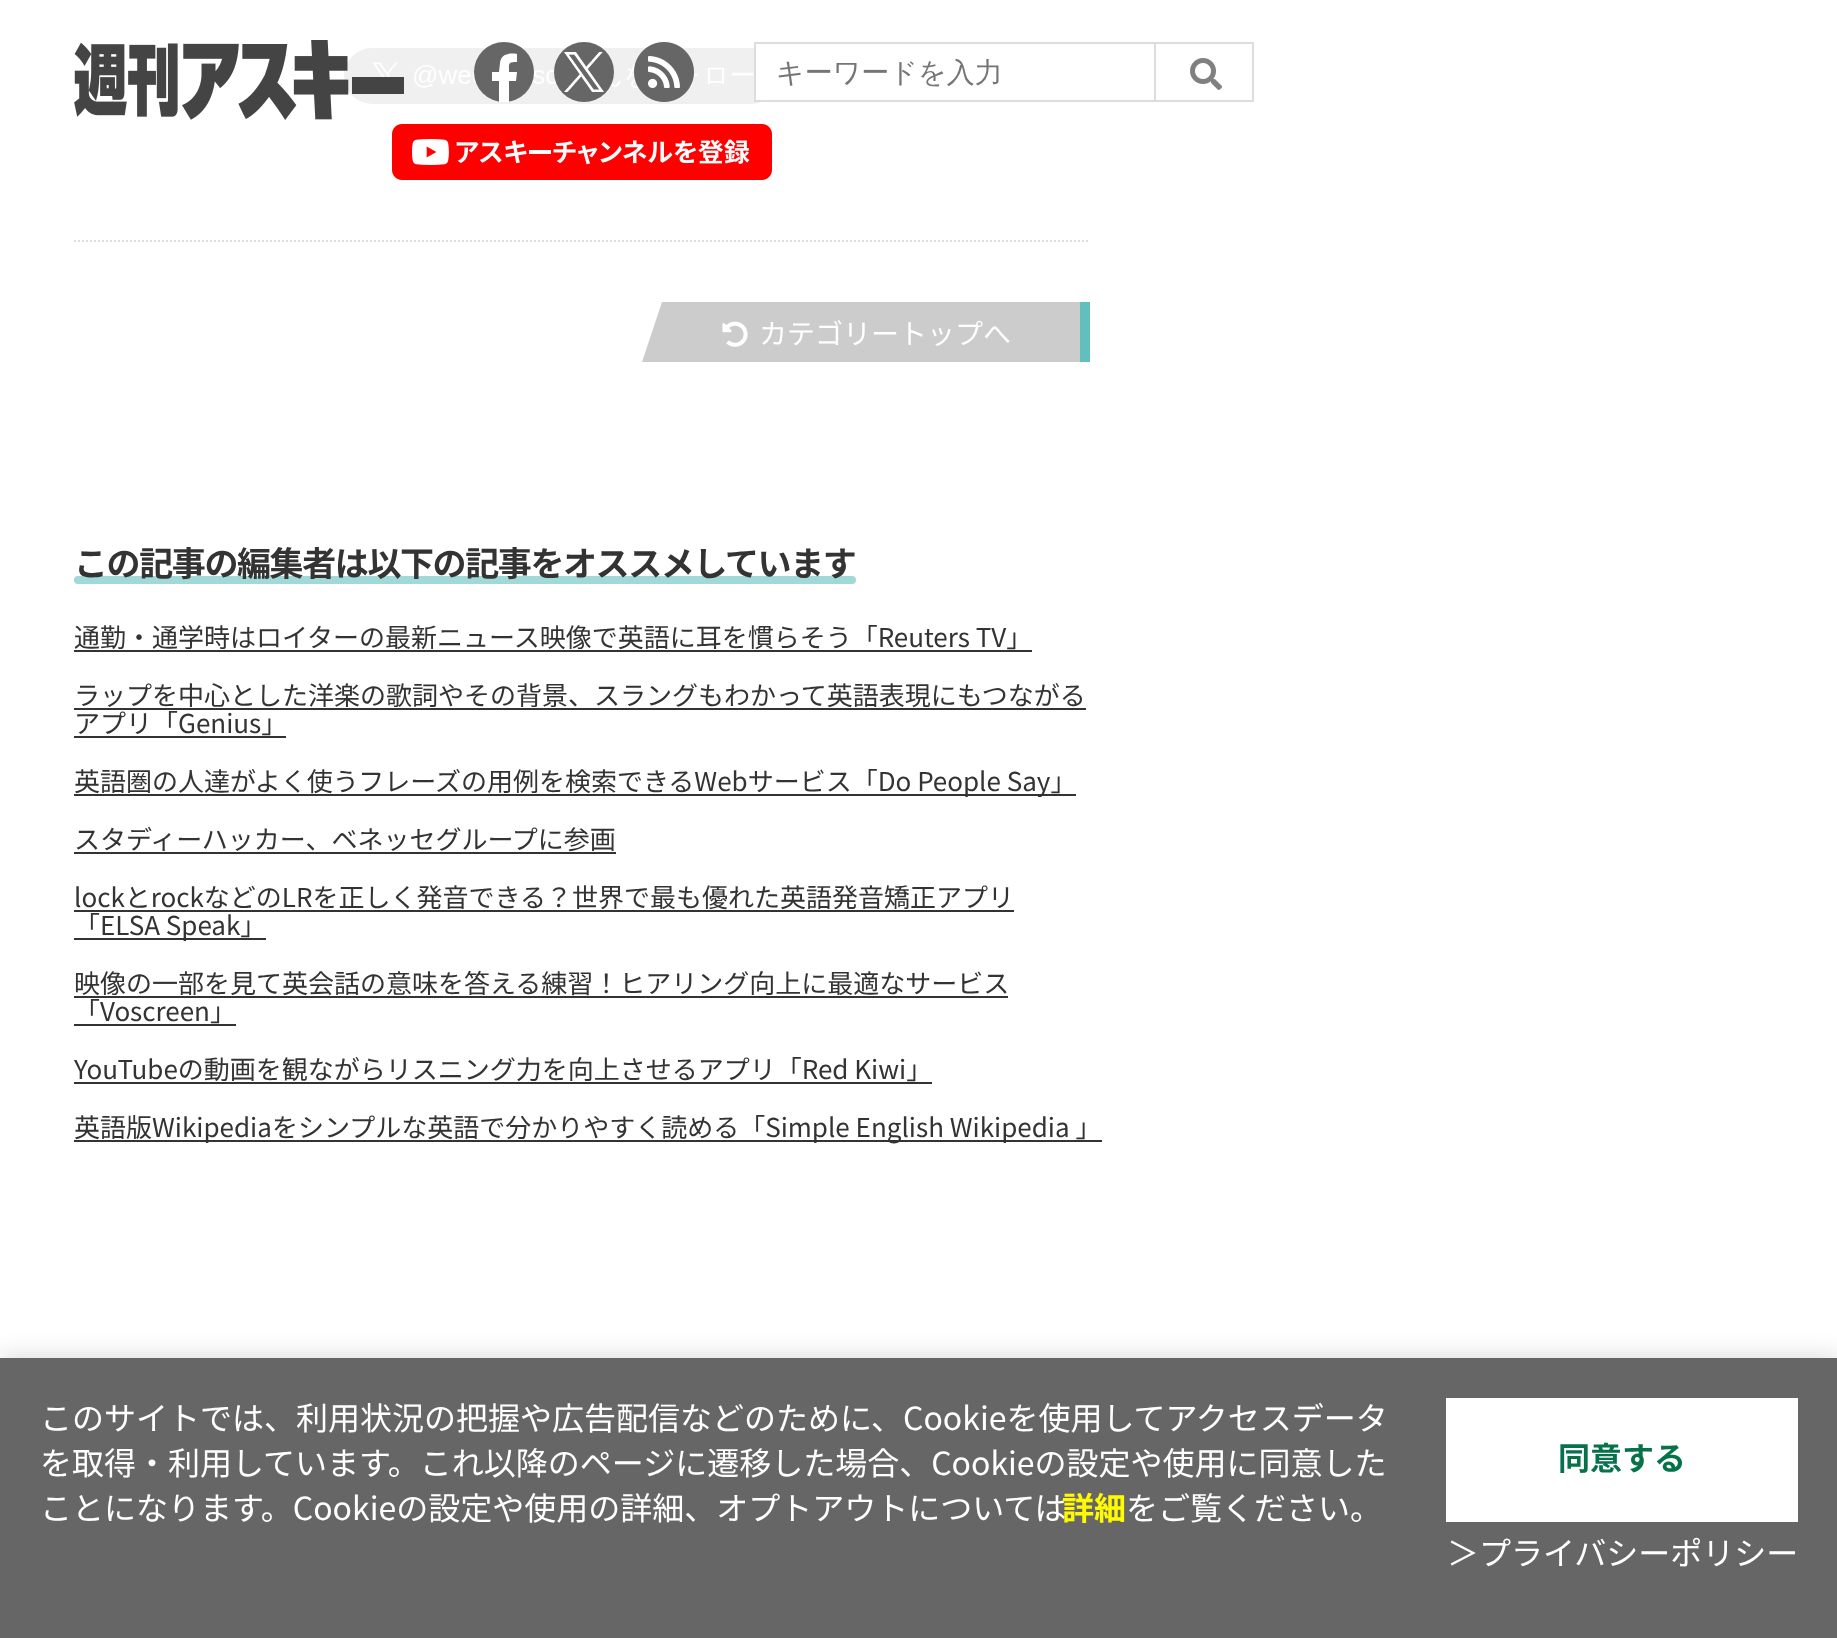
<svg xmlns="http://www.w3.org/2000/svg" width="1837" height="1638">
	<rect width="100%" height="100%" fill="#FFFFFF" />
	<image x="344" y="48" width="418" height="56" href="assets/img5.png" />
	<image x="74" y="40" width="330" height="80" href="assets/img1.png" />
	<circle cx="504" cy="72" r="30" fill="#666666" />
	<path d="M516 81L517 72H509C509 63 508 62 517 62V54C510 53 501 53 500 63L499 72H492V81H499V102C502 102 506 102 509 102V81Z" fill="#FFFFFF" />
	<circle cx="584" cy="72" r="30" fill="#666666" />
	<image x="564" y="52" width="40" height="40" href="assets/img2.png" />
	<image x="634" y="42" width="60" height="60" href="assets/img3.png" />
	<rect x="756" y="48" width="6" height="52" fill="#FFFFFF" />
	<rect x="754" y="42" width="400" height="2" fill="#DDDDDD" />
	<rect x="754" y="100" width="400" height="2" fill="#DDDDDD" />
	<rect x="754" y="42" width="2" height="60" fill="#DDDDDD" />
	<text x="776" y="82" font-family="WenQuanYi Zen Hei" font-size="28" font-weight="500" fill="#757575">キーワードを入力</text>
	<rect x="1155" y="43" width="98" height="58" fill="none" stroke="#DDDDDD" stroke-width="2" />
	<image x="1190" y="58" width="32" height="32" href="assets/img4.png" />
	<path d="M74 241H1090" fill="none" stroke="#DDDDDD" stroke-width="2" stroke-dasharray="2 2" />
	<image x="392" y="124" width="380" height="56" href="assets/img6.png" />
	<rect x="642" y="302" width="438" height="60" fill="#CCCCCC" />
	<path d="M642 302H662L642 362Z" fill="#FFFFFF" />
	<image x="722" y="321" width="26" height="26" href="assets/img7.png" />
	<text x="759" y="344" font-family="Noto Sans JP" font-size="28" font-weight="100" fill="#FFFFFF">カテゴリートップへ</text>
	<rect x="1080" y="302" width="10" height="60" fill="#61BFBE" />
	<rect x="74" y="576" width="782" height="8" rx="4" fill="#A0D9D8" />
	<text x="74" y="576" font-family="Noto Sans JP" font-size="34" font-weight="700" letter-spacing="-1.4" fill="#333333">この記事の編集者は以下の記事をオススメしています</text>
	<text x="74" y="647" font-family="Noto Sans JP" font-size="26" font-weight="100" fill="#333333">通勤・通学時はロイターの最新ニュース映像で英語に耳を慣らそう「Reuters TV」</text>
	<rect x="74" y="650" width="958" height="2" fill="#333333" />
	<text x="74" y="705" font-family="Noto Sans JP" font-size="26" font-weight="100" fill="#333333">ラップを中心とした洋楽の歌詞やその背景、スラングもわかって英語表現にもつながる</text>
	<rect x="74" y="708" width="1012" height="2" fill="#333333" />
	<text x="74" y="733" font-family="Noto Sans JP" font-size="26" font-weight="100" fill="#333333">アプリ「Genius」</text>
	<rect x="74" y="736" width="212" height="2" fill="#333333" />
	<rect x="74" y="794" width="1002" height="2" fill="#333333" />
	<g font-family="Noto Sans JP" font-size="26" font-weight="100" fill="#333333">
		<text x="74" y="791">英語圏の人達がよく使うフレーズの用例を検索できるWebサービス「Do People Say」</text>
		<text x="74" y="849">スタディーハッカー、ベネッセグループに参画</text>
	</g>
	<rect x="74" y="852" width="542" height="2" fill="#333333" />
	<text x="74" y="907" font-family="Noto Sans JP" font-size="26" font-weight="100" fill="#333333">lockとrockなどのLRを正しく発音できる？世界で最も優れた英語発音矯正アプリ</text>
	<rect x="74" y="910" width="940" height="2" fill="#333333" />
	<rect x="74" y="938" width="192" height="2" fill="#333333" />
	<g font-family="Noto Sans JP" font-size="26" font-weight="100" fill="#333333">
		<text x="74" y="935">「ELSA Speak」</text>
		<text x="74" y="993">映像の一部を見て英会話の意味を答える練習！ヒアリング向上に最適なサービス</text>
	</g>
	<rect x="74" y="996" width="934" height="2" fill="#333333" />
	<text x="74" y="1021" font-family="Noto Sans JP" font-size="26" font-weight="100" fill="#333333">「Voscreen」</text>
	<rect x="74" y="1024" width="162" height="2" fill="#333333" />
	<text x="74" y="1079" font-family="Noto Sans JP" font-size="26" font-weight="100" fill="#333333">YouTubeの動画を観ながらリスニング力を向上させるアプリ「Red Kiwi」</text>
	<rect x="74" y="1082" width="858" height="2" fill="#333333" />
	<rect x="74" y="1140" width="1028" height="2" fill="#333333" />
	<text x="74" y="1137" font-family="Noto Sans JP" font-size="26" font-weight="100" fill="#333333">英語版Wikipediaをシンプルな英語で分かりやすく読める「Simple English Wikipedia 」</text>
	<rect x="0" y="1352" width="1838" height="280" fill="#000000" fill-opacity="0.1" filter="blur(10px)" />
	<rect x="0" y="1358" width="1837" height="280" fill="#666666" />
	<g font-family="Noto Sans JP" font-size="32" font-weight="100" fill="#FFFFFF">
		<text x="40" y="1430">このサイトでは、利用状況の把握や広告配信などのために、Cookieを使用してアクセスデータ</text>
		<text x="40" y="1475">を取得・利用しています。これ以降のページに遷移した場合、Cookieの設定や使用に同意した</text>
		<text x="40" y="1520">ことになります。Cookieの設定や使用の詳細、オプトアウトについては</text>
	</g>
	<text x="1062" y="1520" font-family="Noto Sans JP" font-size="32" font-weight="700" fill="#FFFA00">詳細</text>
	<text x="1126" y="1520" font-family="Noto Sans JP" font-size="32" font-weight="100" fill="#FFFFFF">をご覧ください。</text>
	<rect x="1446" y="1398" width="352" height="124" fill="#FFFFFF" />
	<text x="1558" y="1470" font-family="Noto Sans JP" font-size="32" font-weight="700" fill="#05724B">同意する</text>
	<text x="1447" y="1565" font-family="Noto Sans JP" font-size="32" font-weight="100" fill="#FFFFFF">＞プライバシーポリシー</text>
</svg>
